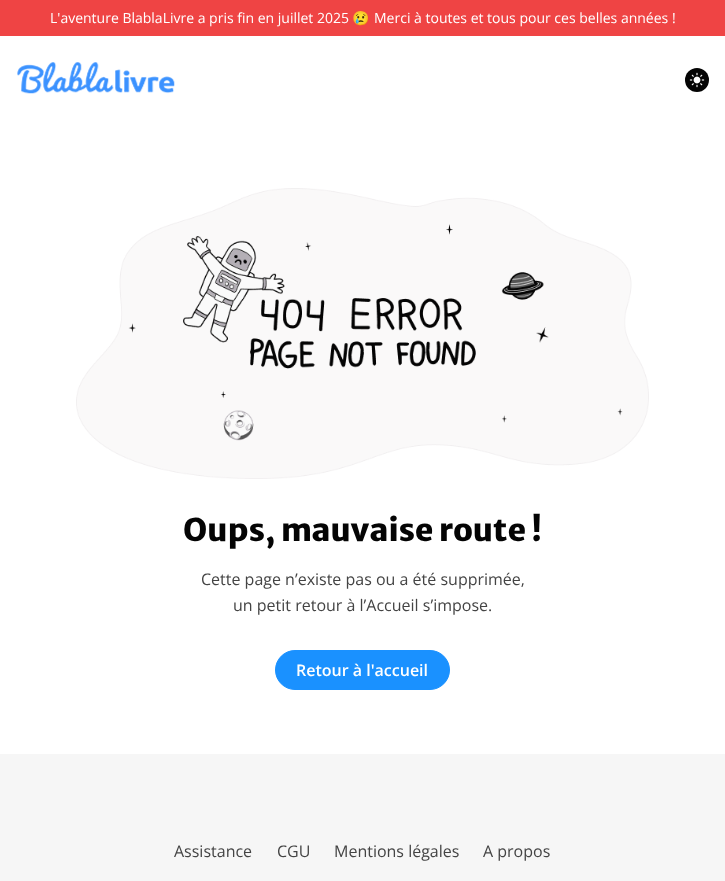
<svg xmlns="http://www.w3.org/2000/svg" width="725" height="881">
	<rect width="100%" height="100%" fill="#FFFFFF" />
	<rect x="0" y="0" width="725" height="36" fill="#EF4444" />
	<text x="50" y="23" font-family="Open Sans" font-size="14" fill="#FFFFFF">L'aventure BlablaLivre a pris fin en juillet 2025</text>
	<text x="352" y="23" font-family="Noto Color Emoji" font-size="14" fill="#FFFFFF">😢</text>
	<text x="374" y="23" font-family="Open Sans" font-size="14" fill="#FFFFFF">Merci à toutes et tous pour ces belles années !</text>
	<image x="17" y="62" width="158" height="32" href="assets/img1.png" />
	<circle cx="697" cy="80" r="12" fill="#040404" />
	<image x="689" y="72" width="16" height="16" href="assets/img2.png" />
	<image x="76" y="188" width="573" height="291" href="assets/img3.png" />
	<text x="183" y="541" font-family="Merriweather Sans" font-size="31.25" font-weight="800" fill="#040404">Oups, mauvaise route !</text>
	<g font-family="Open Sans" font-size="16" fill="#444444">
		<text x="201" y="585">Cette page n’existe pas ou a été supprimée,</text>
		<text x="233" y="611">un petit retour à l’Accueil s’impose.</text>
	</g>
	<rect x="275.5" y="650.5" width="174" height="39" rx="19.5" fill="#1A91FF" stroke="#1A91FF" />
	<text x="296" y="676" font-family="Open Sans" font-size="16" font-weight="600" fill="#FFFFFF">Retour à l'accueil</text>
	<rect x="0" y="754" width="725" height="127" fill="#F6F6F6" />
	<g font-family="Open Sans" font-size="16" fill="#444444">
		<text x="174" y="857">Assistance</text>
		<text x="277" y="857">CGU</text>
		<text x="334" y="857">Mentions légales</text>
		<text x="483" y="857">A propos</text>
	</g>
</svg>
